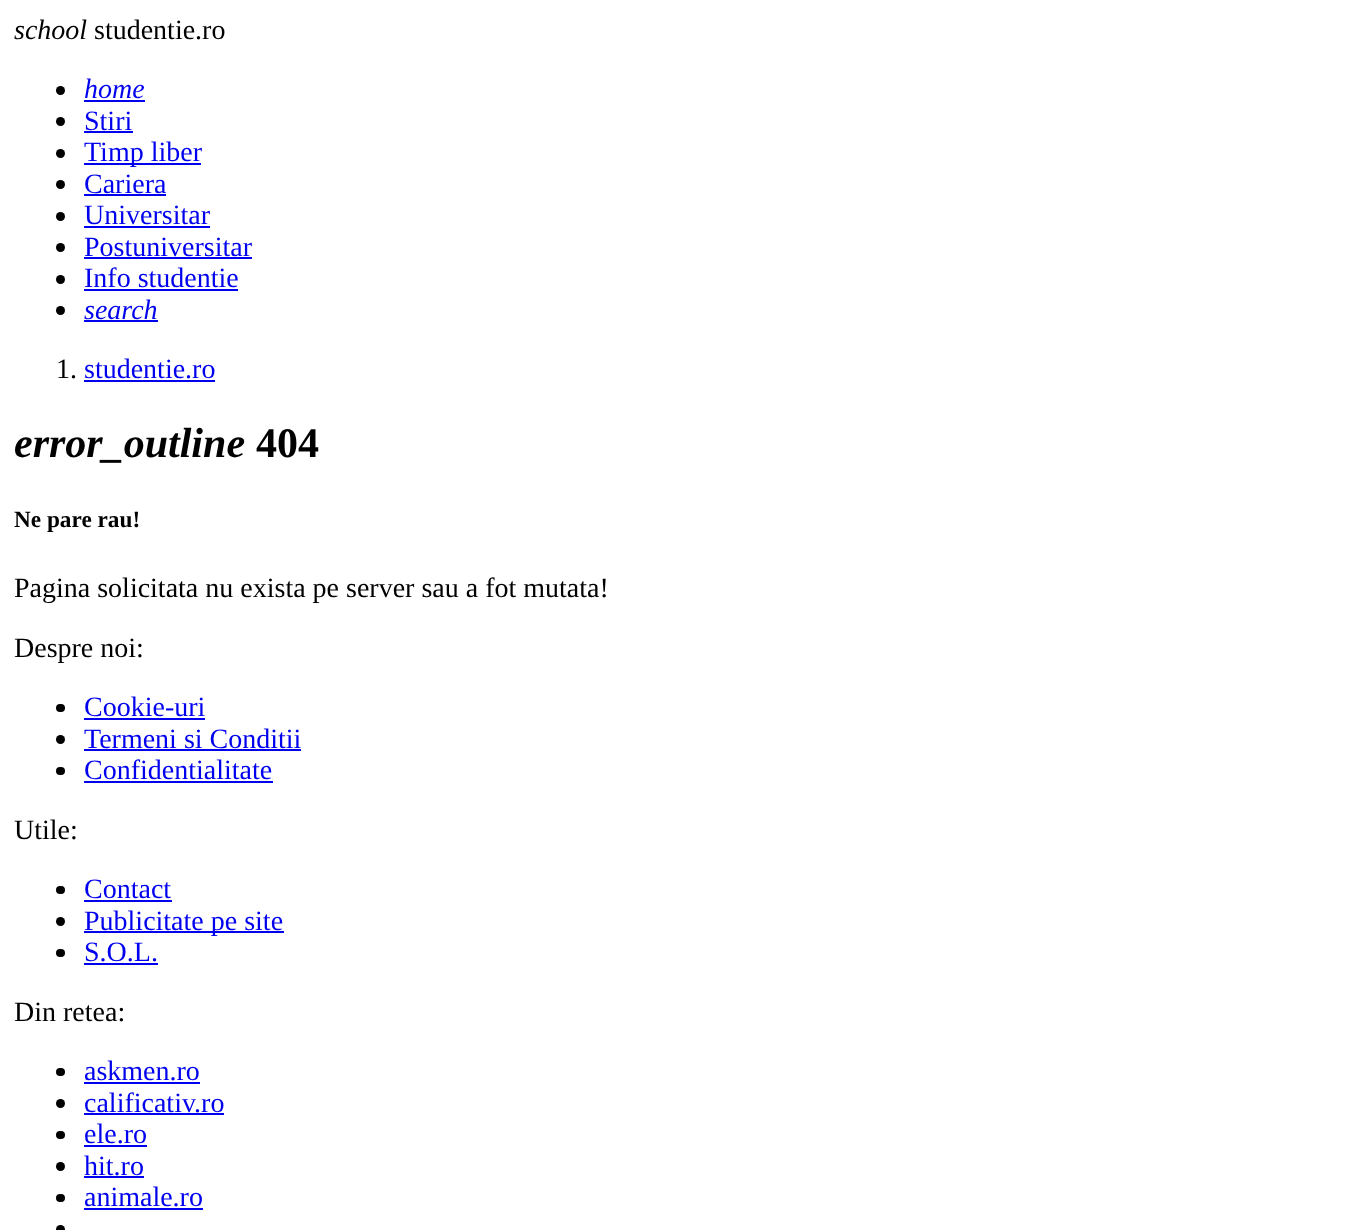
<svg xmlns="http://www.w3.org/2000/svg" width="1352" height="1230">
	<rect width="100%" height="100%" fill="#FFFFFF" />
	<text x="14" y="39" font-family="Liberation Serif" font-size="28" font-style="italic" fill="#000000">school</text>
	<text x="94" y="39" font-family="Liberation Serif" font-size="28" fill="#000000">studentie.ro</text>
	<circle cx="60.5" cy="90.5" r="4.5" fill="#000000" />
	<text x="84" y="98" font-family="Liberation Serif" font-size="28" font-style="italic" fill="#0000EE">home</text>
	<rect x="84" y="100" width="61" height="2" fill="#0000EE" />
	<circle cx="60.5" cy="121.5" r="4.5" fill="#000000" />
	<text x="84" y="130" font-family="Liberation Serif" font-size="28" fill="#0000EE">Stiri</text>
	<rect x="84" y="131" width="49" height="2" fill="#0000EE" />
	<circle cx="60.5" cy="153.5" r="4.5" fill="#000000" />
	<rect x="84" y="163" width="117" height="2" fill="#0000EE" />
	<text x="84" y="161" font-family="Liberation Serif" font-size="28" fill="#0000EE">Timp liber</text>
	<circle cx="60.5" cy="184.5" r="4.5" fill="#000000" />
	<text x="84" y="193" font-family="Liberation Serif" font-size="28" fill="#0000EE">Cariera</text>
	<rect x="84" y="194" width="82" height="2" fill="#0000EE" />
	<circle cx="60.5" cy="216.5" r="4.5" fill="#000000" />
	<text x="84" y="224" font-family="Liberation Serif" font-size="28" fill="#0000EE">Universitar</text>
	<rect x="84" y="226" width="126" height="2" fill="#0000EE" />
	<circle cx="60.5" cy="247.5" r="4.5" fill="#000000" />
	<text x="84" y="256" font-family="Liberation Serif" font-size="28" fill="#0000EE">Postuniversitar</text>
	<rect x="84" y="257" width="168" height="2" fill="#0000EE" />
	<circle cx="60.5" cy="279.5" r="4.5" fill="#000000" />
	<text x="84" y="287" font-family="Liberation Serif" font-size="28" fill="#0000EE">Info studentie</text>
	<rect x="84" y="289" width="154" height="2" fill="#0000EE" />
	<circle cx="60.5" cy="310.5" r="4.5" fill="#000000" />
	<text x="84" y="319" font-family="Liberation Serif" font-size="28" font-style="italic" fill="#0000EE">search</text>
	<rect x="84" y="320" width="74" height="2" fill="#0000EE" />
	<text x="56" y="378" font-family="Liberation Serif" font-size="28" fill="#000000">1.</text>
	<text x="84" y="378" font-family="Liberation Serif" font-size="28" fill="#0000EE">studentie.ro</text>
	<rect x="84" y="380" width="131" height="2" fill="#0000EE" />
	<text x="14" y="457" font-family="Liberation Serif" font-size="42" font-weight="700" font-style="italic" fill="#000000">error_outline</text>
	<text x="256" y="457" font-family="Liberation Serif" font-size="42" font-weight="700" fill="#000000">404</text>
	<text x="14" y="527" font-family="Liberation Serif" font-size="23.25" font-weight="700" fill="#000000">Ne pare rau!</text>
	<g font-family="Liberation Serif" font-size="28" fill="#000000">
		<text x="14" y="597">Pagina solicitata nu exista pe server sau a fot mutata!</text>
		<text x="14" y="657">Despre noi:</text>
	</g>
	<rect x="56" y="704" width="9" height="8" rx="4" fill="#000000" />
	<text x="84" y="716" font-family="Liberation Serif" font-size="28" fill="#0000EE">Cookie-uri</text>
	<rect x="84" y="718" width="121" height="2" fill="#0000EE" />
	<circle cx="60.5" cy="739.5" r="4.5" fill="#000000" />
	<text x="84" y="748" font-family="Liberation Serif" font-size="28" fill="#0000EE">Termeni si Conditii</text>
	<rect x="84" y="749" width="217" height="2" fill="#0000EE" />
	<rect x="56" y="767" width="9" height="8" rx="4" fill="#000000" />
	<text x="84" y="779" font-family="Liberation Serif" font-size="28" fill="#0000EE">Confidentialitate</text>
	<rect x="84" y="781" width="189" height="2" fill="#0000EE" />
	<text x="14" y="839" font-family="Liberation Serif" font-size="28" fill="#000000">Utile:</text>
	<rect x="56" y="886" width="9" height="8" rx="4" fill="#000000" />
	<text x="84" y="898" font-family="Liberation Serif" font-size="28" fill="#0000EE">Contact</text>
	<rect x="84" y="900" width="88" height="2" fill="#0000EE" />
	<circle cx="60.5" cy="921.5" r="4.5" fill="#000000" />
	<rect x="84" y="931" width="200" height="2" fill="#0000EE" />
	<text x="84" y="930" font-family="Liberation Serif" font-size="28" fill="#0000EE">Publicitate pe site</text>
	<rect x="56" y="949" width="9" height="8" rx="4" fill="#000000" />
	<text x="84" y="961" font-family="Liberation Serif" font-size="28" fill="#0000EE">S.O.L.</text>
	<rect x="84" y="963" width="74" height="2" fill="#0000EE" />
	<text x="14" y="1021" font-family="Liberation Serif" font-size="28" fill="#000000">Din retea:</text>
	<rect x="56" y="1068" width="9" height="8" rx="4" fill="#000000" />
	<text x="84" y="1080" font-family="Liberation Serif" font-size="28" fill="#0000EE">askmen.ro</text>
	<rect x="84" y="1082" width="116" height="2" fill="#0000EE" />
	<circle cx="60.5" cy="1103.5" r="4.5" fill="#000000" />
	<text x="84" y="1112" font-family="Liberation Serif" font-size="28" fill="#0000EE">calificativ.ro</text>
	<rect x="84" y="1113" width="140" height="2" fill="#0000EE" />
	<rect x="56" y="1131" width="9" height="8" rx="4" fill="#000000" />
	<text x="84" y="1143" font-family="Liberation Serif" font-size="28" fill="#0000EE">ele.ro</text>
	<rect x="84" y="1145" width="63" height="2" fill="#0000EE" />
	<circle cx="60.5" cy="1166.5" r="4.5" fill="#000000" />
	<text x="84" y="1175" font-family="Liberation Serif" font-size="28" fill="#0000EE">hit.ro</text>
	<rect x="84" y="1176" width="60" height="2" fill="#0000EE" />
	<rect x="56" y="1194" width="9" height="8" rx="4" fill="#000000" />
	<text x="84" y="1206" font-family="Liberation Serif" font-size="28" fill="#0000EE">animale.ro</text>
	<rect x="84" y="1208" width="119" height="2" fill="#0000EE" />
	<circle cx="60.5" cy="1229.5" r="4.5" fill="#000000" />
</svg>
